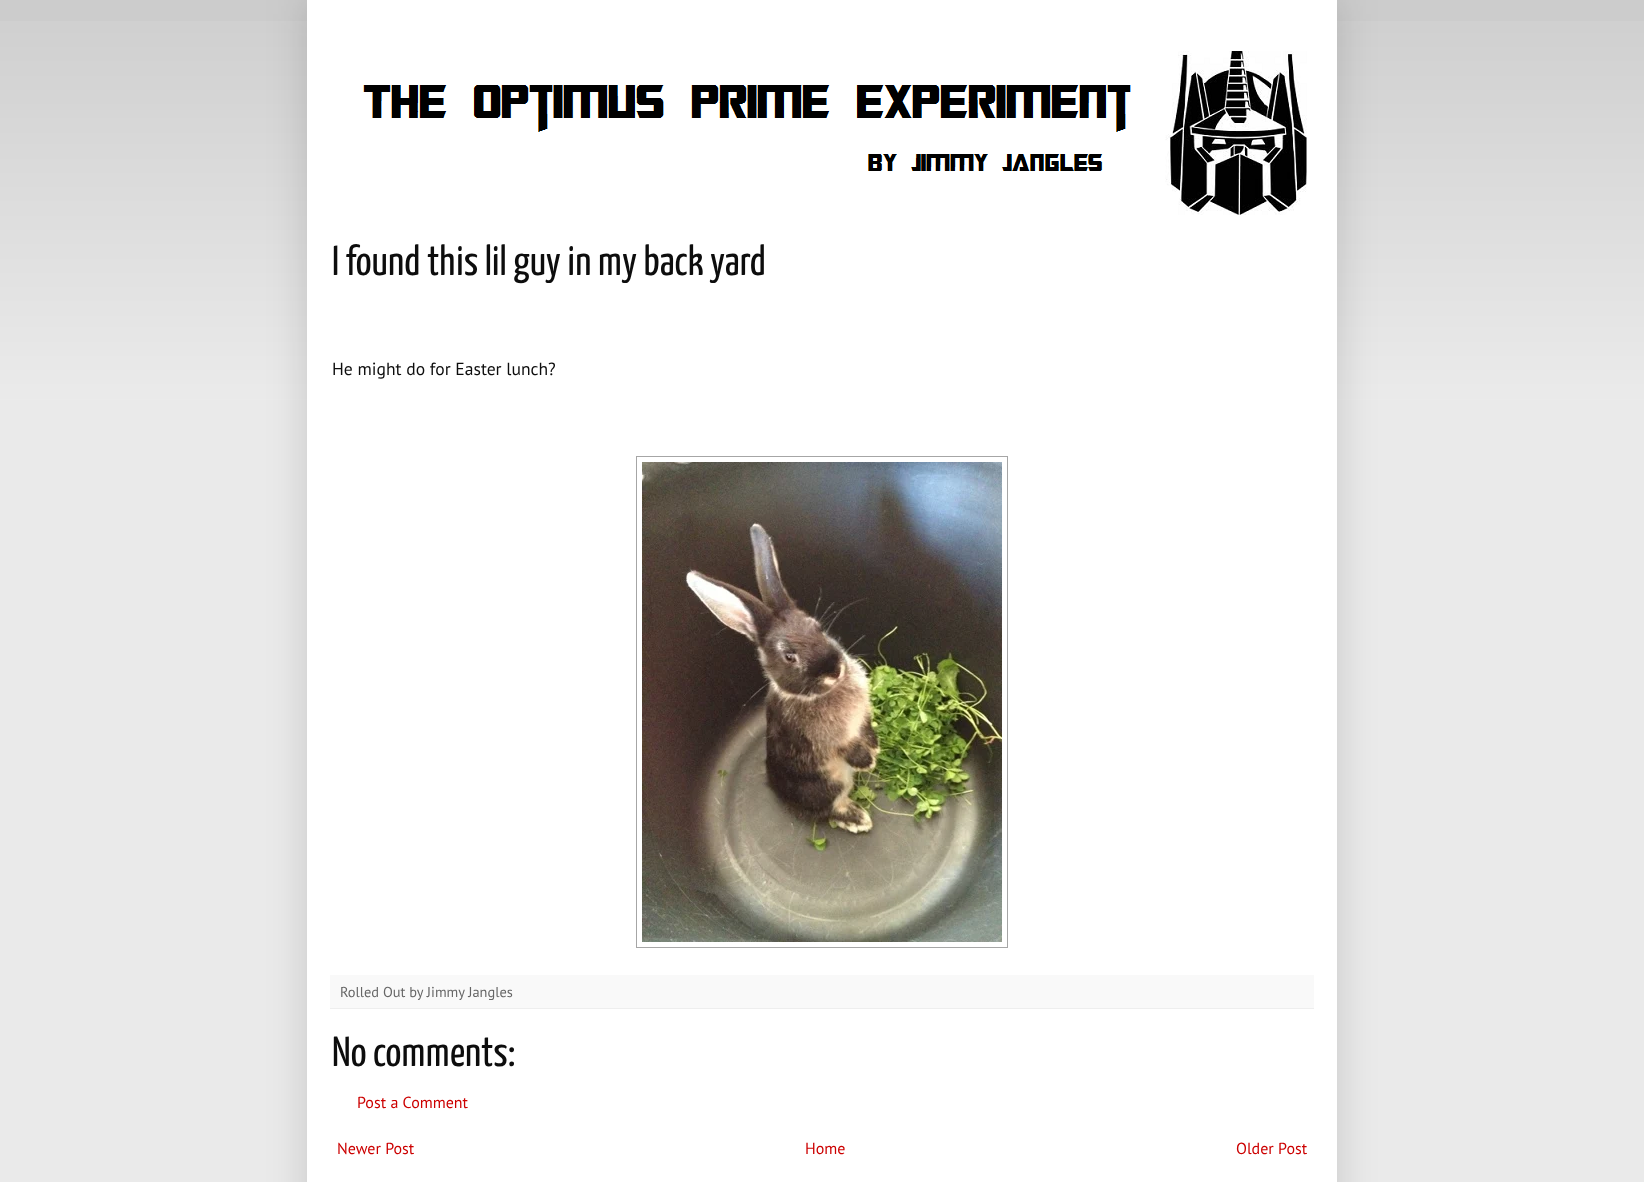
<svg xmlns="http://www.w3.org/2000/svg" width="1644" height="1182">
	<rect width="100%" height="100%" fill="#EAEAEA" />
	<rect x="0" y="0" width="1644" height="400" fill="#CCCCCC" />
	<image x="0" y="21" width="1644" height="379" href="assets/img1.png" />
	<rect x="307" y="0" width="1030" height="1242" fill="#000000" fill-opacity="0.15" filter="blur(20px)" />
	<rect x="307" y="0" width="1030" height="1182" fill="#FFFFFF" />
	<image x="363" y="51" width="944" height="164" href="assets/img2.png" />
	<text x="332" y="275" font-family="Yanone Kaffeesatz" font-size="42" fill="#0D0D0D">I found this lil guy in my back yard</text>
	<text x="332" y="375" font-family="PT Sans" font-size="17.6" fill="#0D0D0D">He might do for Easter lunch?</text>
	<rect x="636.5" y="456.5" width="371" height="491" fill="none" stroke="#A6A6A6" />
	<image x="642" y="462" width="360" height="480" href="assets/img3.png" />
	<rect x="330" y="975" width="984" height="33" fill="#F9F9F9" />
	<rect x="330" y="1008" width="984" height="1" fill="#EEEEEE" />
	<text x="340" y="997" font-family="PT Sans" font-size="14.4" fill="#666666">Rolled Out by Jimmy Jangles</text>
	<text x="332" y="1066" font-family="Yanone Kaffeesatz" font-size="42" fill="#0D0D0D">No comments:</text>
	<g font-family="PT Sans" font-size="16" fill="#CC0000">
		<text x="357" y="1108">Post a Comment</text>
		<text x="337" y="1154">Newer Post</text>
		<text x="805" y="1154">Home</text>
		<text x="1236" y="1154">Older Post</text>
	</g>
</svg>
